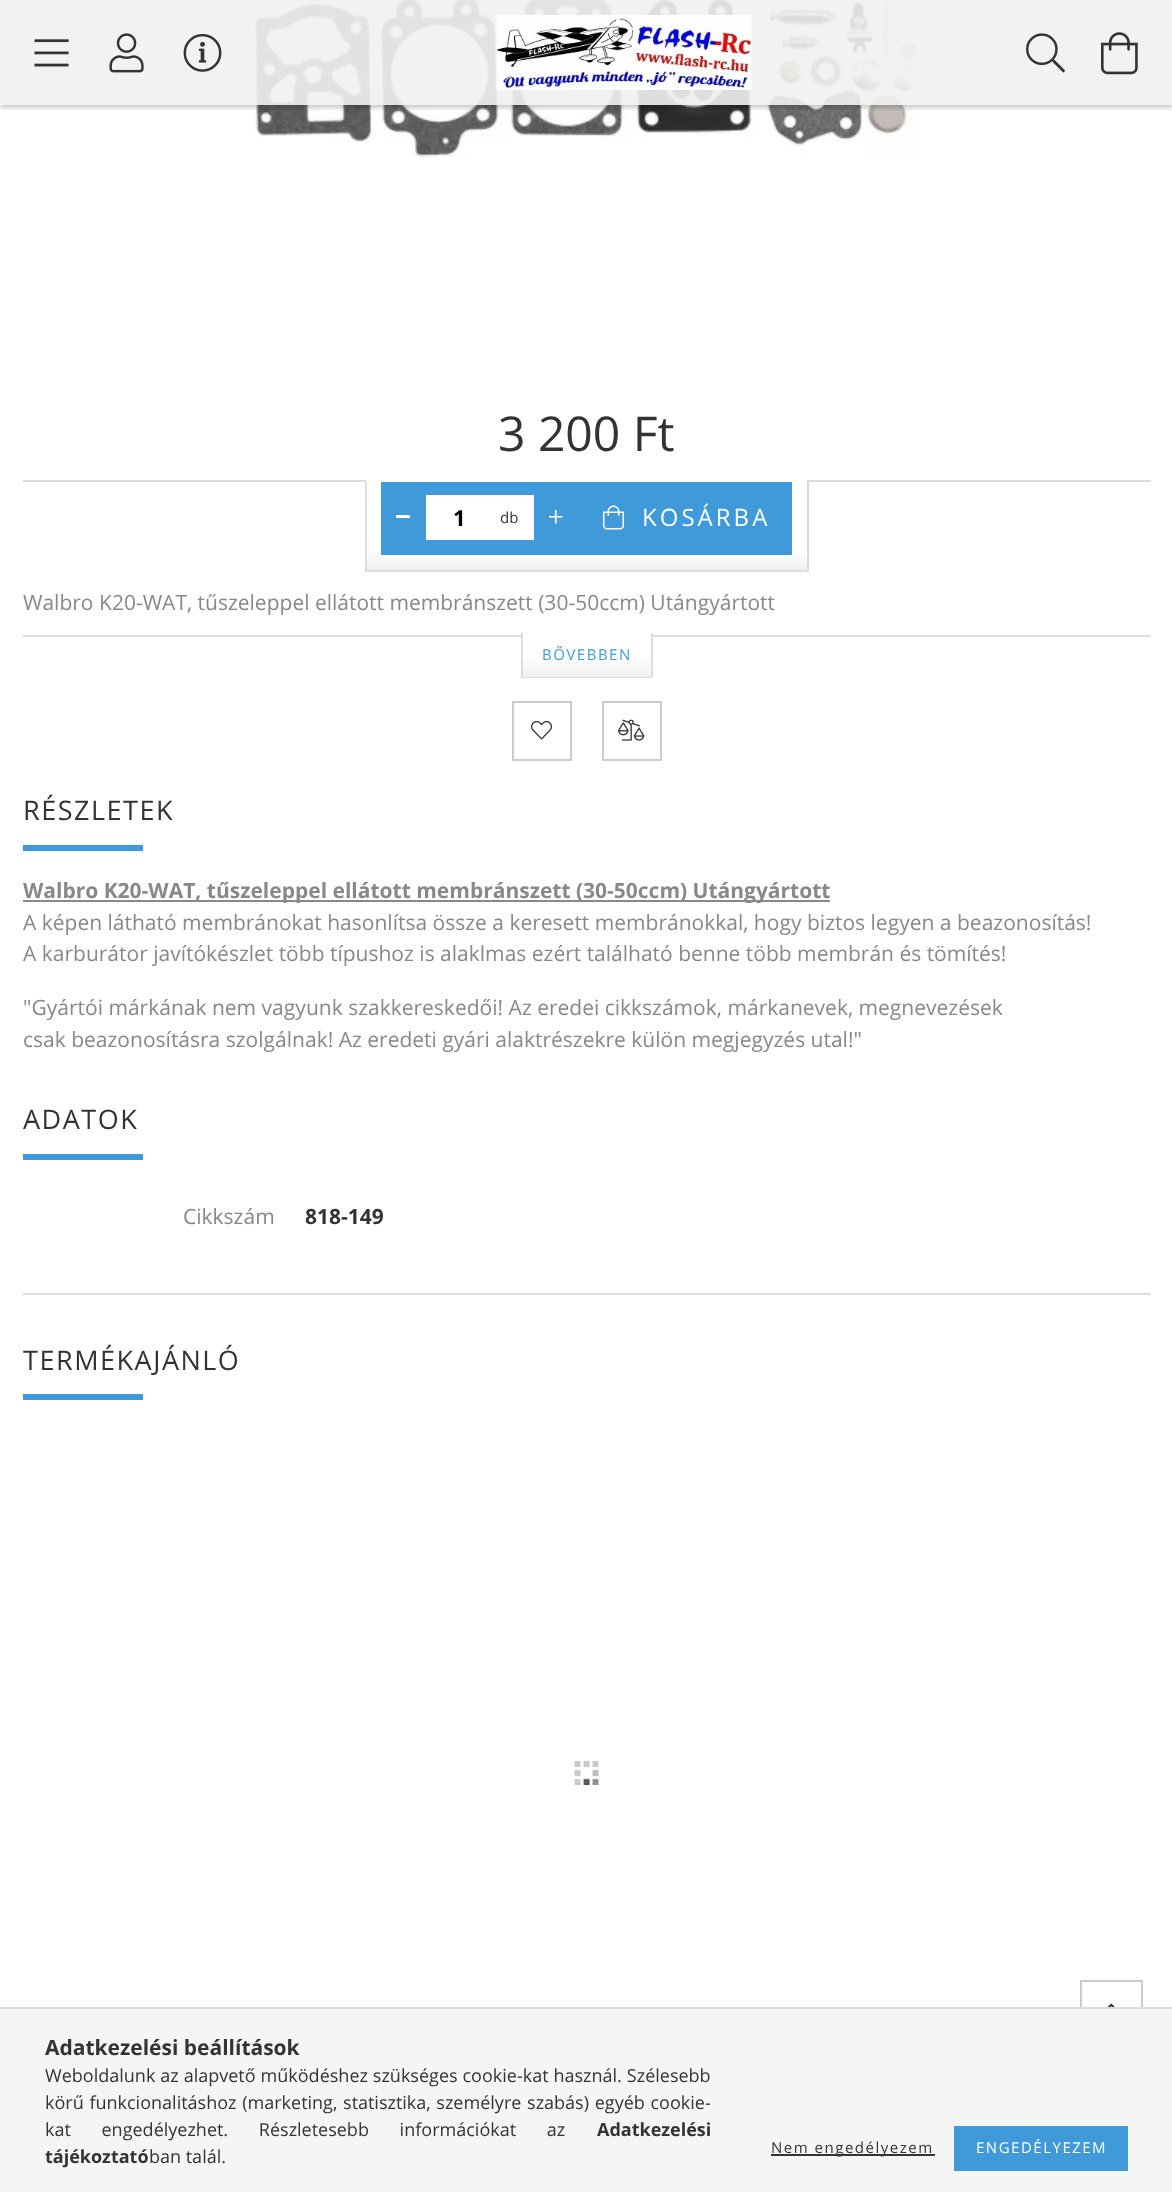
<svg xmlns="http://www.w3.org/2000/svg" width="1172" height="2192">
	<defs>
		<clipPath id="clip1"><rect x="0" y="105" width="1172" height="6" /></clipPath>
		<linearGradient id="g1" gradientUnits="userSpaceOnUse" x1="587" y1="570" x2="587" y2="480"><stop offset="0" stop-color="#F1F1F1" /><stop offset="0.25" stop-color="#F1F1F1" stop-opacity="0" /><stop offset="1" stop-color="#FFFFFF" stop-opacity="0" /></linearGradient>
		<linearGradient id="g2" gradientUnits="userSpaceOnUse" x1="587" y1="677" x2="587" y2="635"><stop offset="0" stop-color="#F1F1F1" /><stop offset="0.54" stop-color="#FFFFFF" /><stop offset="1" stop-color="#FFFFFF" /></linearGradient>
	</defs>
	<rect width="100%" height="100%" fill="#FFFFFF" />
	<image x="254" y="0" width="665" height="159" href="assets/img7.png" />
	<g clip-path="url(#clip1)">
		<rect x="0" y="3" width="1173" height="105" fill="#000000" fill-opacity="0.2" filter="blur(2px)" />
	</g>
	<rect x="0" y="0" width="1172" height="105" fill="#F1F1F1" fill-opacity="0.9" />
	<image x="34" y="39" width="35" height="28" href="assets/img1.png" />
	<image x="109" y="33" width="35" height="40" href="assets/img2.png" />
	<image x="183" y="34" width="39" height="38" href="assets/img3.png" />
	<image x="496" y="15" width="256" height="75" href="assets/img4.png" />
	<image x="1026" y="33" width="39" height="40" href="assets/img5.png" />
	<image x="1101" y="32" width="37" height="43" href="assets/img6.png" />
	<text x="498" y="451" font-family="Open Sans" font-size="48" fill="#333333">3 200 Ft</text>
	<rect x="23" y="480" width="1128" height="2" fill="#DDDDDD" />
	<rect x="367" y="552" width="440" height="18" fill="url(#g1)" />
	<rect x="807" y="480" width="2" height="92" fill="#DDDDDD" />
	<rect x="365" y="570" width="444" height="2" fill="#DDDDDD" />
	<rect x="365" y="480" width="2" height="92" fill="#DDDDDD" />
	<rect x="366" y="480" width="441" height="2" fill="#FFFFFF" />
	<rect x="381" y="482" width="411" height="73" fill="#4099D8" />
	<rect x="396" y="515" width="14" height="3" fill="#FFFFFF" />
	<rect x="426" y="495" width="108" height="45" fill="#FFFFFF" />
	<text x="453" y="526" font-family="Open Sans" font-size="22" font-weight="700" fill="#000000">1</text>
	<text x="500" y="523" font-family="Open Sans" font-size="15" fill="#333333">db</text>
	<image x="549" y="510" width="14" height="14" href="assets/img8.png" />
	<image x="603" y="505" width="21" height="25" href="assets/img9.png" />
	<text x="642" y="526" font-family="Open Sans" font-size="24" letter-spacing="3" fill="#FFFFFF">KOSÁRBA</text>
	<text x="23" y="610" font-family="Open Sans" font-size="21" fill="#888888">Walbro K20-WAT, tűszeleppel ellátott membránszett (30-50ccm) Utángyártott</text>
	<rect x="523" y="658" width="128" height="19" fill="url(#g2)" />
	<rect x="651" y="633" width="2" height="45" fill="#DDDDDD" />
	<rect x="521" y="677" width="132" height="1" fill="#DDDDDD" />
	<rect x="521" y="633" width="2" height="45" fill="#DDDDDD" />
	<rect x="23" y="635" width="499" height="2" fill="#DDDDDD" />
	<rect x="651" y="635" width="500" height="2" fill="#DDDDDD" />
	<text x="542" y="660" font-family="Open Sans" font-size="15" letter-spacing="1.5" fill="#4099D8">BŐVEBBEN</text>
	<rect x="513" y="702" width="58" height="58" fill="none" stroke="#CCCCCC" stroke-width="2" />
	<image x="531" y="720" width="21" height="20" href="assets/img10.png" />
	<rect x="603" y="702" width="58" height="58" fill="none" stroke="#CCCCCC" stroke-width="2" />
	<image x="618" y="719" width="27" height="22" href="assets/img11.png" />
	<text x="23" y="820" font-family="Open Sans" font-size="27" letter-spacing="1.5" fill="#333333">RÉSZLETEK</text>
	<rect x="23" y="845" width="120" height="6" fill="#4099D8" />
	<rect x="23" y="900" width="807" height="2" fill="#888888" />
	<text x="23" y="898" font-family="Open Sans" font-size="21" font-weight="700" fill="#888888">Walbro K20-WAT, tűszeleppel ellátott membránszett (30-50ccm) Utángyártott</text>
	<g font-family="Open Sans" font-size="21" fill="#888888">
		<text x="23" y="930">A képen látható membránokat hasonlítsa össze a keresett membránokkal, hogy biztos legyen a beazonosítás!</text>
		<text x="23" y="961">A karburátor javítókészlet több típushoz is alaklmas ezért található benne több membrán és tömítés!</text>
		<text x="23" y="1015">"Gyártói márkának nem vagyunk szakkereskedői! Az eredei cikkszámok, márkanevek, megnevezések</text>
		<text x="23" y="1047">csak beazonosításra szolgálnak! Az eredeti gyári alaktrészekre külön megjegyzés utal!"</text>
	</g>
	<text x="23" y="1129" font-family="Open Sans" font-size="27" letter-spacing="1.5" fill="#333333">ADATOK</text>
	<rect x="23" y="1154" width="120" height="6" fill="#4099D8" />
	<text x="183" y="1224" font-family="Open Sans" font-size="21" fill="#888888">Cikkszám</text>
	<text x="305" y="1224" font-family="Open Sans" font-size="21" font-weight="700" fill="#333333">818-149</text>
	<rect x="23" y="1293" width="1128" height="2" fill="#DDDDDD" />
	<text x="23" y="1370" font-family="Open Sans" font-size="27" letter-spacing="1.5" fill="#333333">TERMÉKAJÁNLÓ</text>
	<rect x="23" y="1394" width="120" height="6" fill="#4099D8" />
	<image x="574" y="1761" width="25" height="24" href="assets/img12.png" />
	<rect x="1081" y="1981" width="61" height="61" fill="none" stroke="#CCCCCC" stroke-width="2" />
	<image x="1107" y="2003" width="8" height="4" href="assets/img13.png" />
	<rect x="0" y="2009" width="1172" height="183" fill="#F5F5F5" />
	<rect x="0" y="2007" width="1172" height="2" fill="#DDDDDD" />
	<text x="45" y="2055" font-family="Open Sans" font-size="21" font-weight="700" fill="#333333">Adatkezelési beállítások</text>
	<g font-family="Open Sans" font-size="18" fill="#333333">
		<text x="45" y="2082" word-spacing="0.25">Weboldalunk az alapvető működéshez szükséges cookie-kat használ. Szélesebb</text>
		<text x="45" y="2109" word-spacing="1">körű funkcionalitáshoz (marketing, statisztika, személyre szabás) egyéb cookie-</text>
		<text x="45" y="2136" word-spacing="26">kat engedélyezhet. Részletesebb információkat az</text>
	</g>
	<g font-family="Open Sans" font-size="18" font-weight="700" fill="#333333">
		<text x="597" y="2136">Adatkezelési</text>
		<text x="45" y="2163">tájékoztató</text>
	</g>
	<text x="149" y="2163" font-family="Open Sans" font-size="18" fill="#333333">ban talál.</text>
	<rect x="771" y="2154" width="164" height="2" fill="#333333" />
	<text x="771" y="2153" font-family="Open Sans" font-size="15" letter-spacing="1.5" fill="#333333">Nem engedélyezem</text>
	<rect x="954" y="2126" width="174" height="45" fill="#4099D8" />
	<text x="976" y="2153" font-family="Open Sans" font-size="15" letter-spacing="1.5" fill="#FFFFFF">ENGEDÉLYEZEM</text>
</svg>
